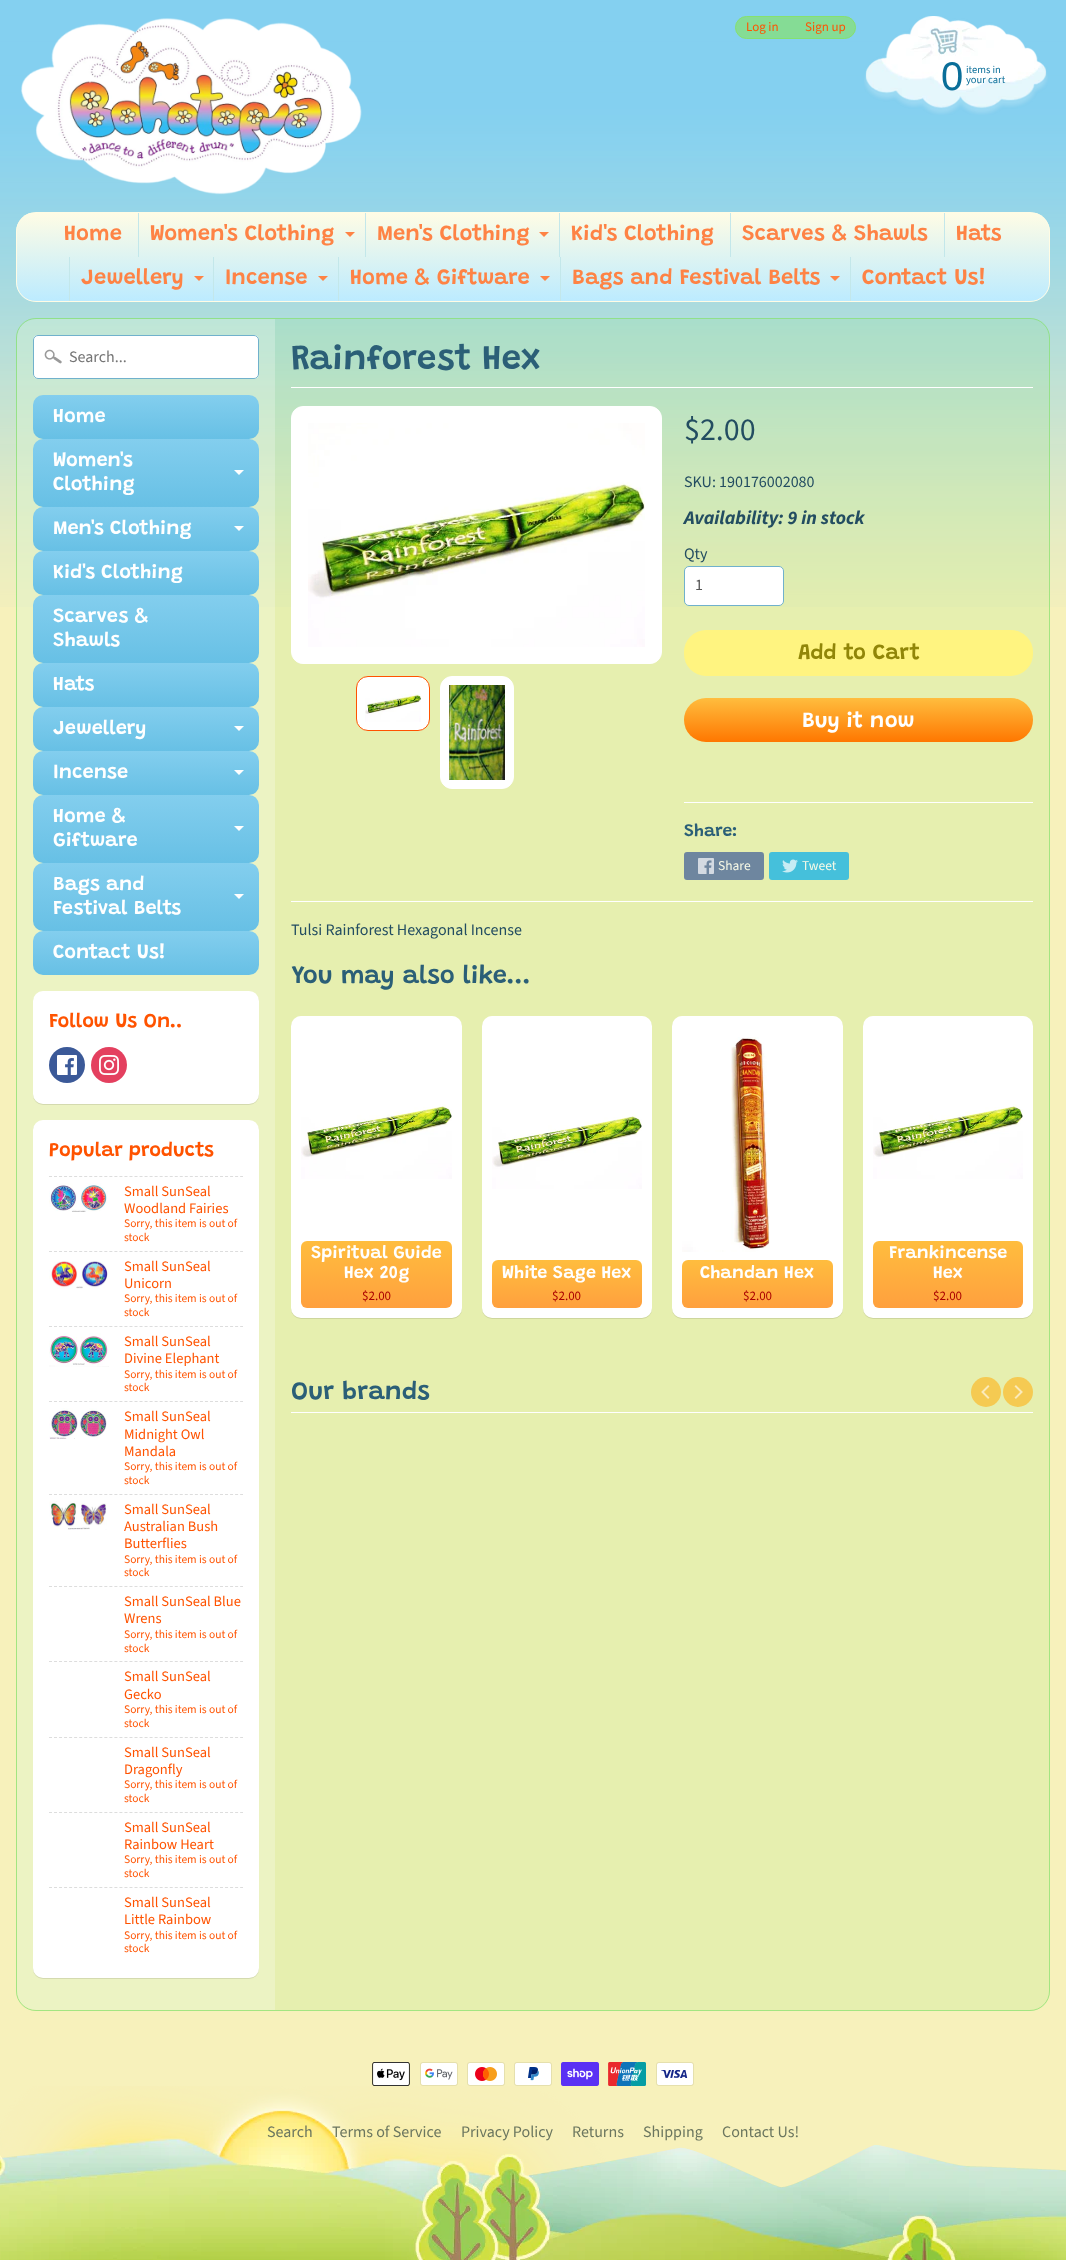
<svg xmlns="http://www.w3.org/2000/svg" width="1066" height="2260">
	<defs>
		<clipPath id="clip1"><rect x="16" y="212" width="1034" height="90" rx="20" /></clipPath>
		<linearGradient id="g1" gradientUnits="userSpaceOnUse" x1="533" y1="213" x2="533" y2="301"><stop offset="0" stop-color="#FFFCE5" /><stop offset="1" stop-color="#BCEBFF" /></linearGradient>
		<linearGradient id="g2" gradientUnits="userSpaceOnUse" x1="146" y1="395" x2="146" y2="439"><stop offset="0" stop-color="#83CEEE" /><stop offset="1" stop-color="#67C0E5" /></linearGradient>
		<linearGradient id="g3" gradientUnits="userSpaceOnUse" x1="146" y1="439" x2="146" y2="507"><stop offset="0" stop-color="#83CEEE" /><stop offset="1" stop-color="#67C0E5" /></linearGradient>
		<linearGradient id="g4" gradientUnits="userSpaceOnUse" x1="146" y1="507" x2="146" y2="551"><stop offset="0" stop-color="#83CEEE" /><stop offset="1" stop-color="#67C0E5" /></linearGradient>
		<linearGradient id="g5" gradientUnits="userSpaceOnUse" x1="146" y1="551" x2="146" y2="595"><stop offset="0" stop-color="#83CEEE" /><stop offset="1" stop-color="#67C0E5" /></linearGradient>
		<linearGradient id="g6" gradientUnits="userSpaceOnUse" x1="146" y1="595" x2="146" y2="663"><stop offset="0" stop-color="#83CEEE" /><stop offset="1" stop-color="#67C0E5" /></linearGradient>
		<linearGradient id="g7" gradientUnits="userSpaceOnUse" x1="146" y1="663" x2="146" y2="707"><stop offset="0" stop-color="#83CEEE" /><stop offset="1" stop-color="#67C0E5" /></linearGradient>
		<linearGradient id="g8" gradientUnits="userSpaceOnUse" x1="146" y1="707" x2="146" y2="751"><stop offset="0" stop-color="#83CEEE" /><stop offset="1" stop-color="#67C0E5" /></linearGradient>
		<linearGradient id="g9" gradientUnits="userSpaceOnUse" x1="146" y1="751" x2="146" y2="795"><stop offset="0" stop-color="#83CEEE" /><stop offset="1" stop-color="#67C0E5" /></linearGradient>
		<linearGradient id="g10" gradientUnits="userSpaceOnUse" x1="146" y1="795" x2="146" y2="863"><stop offset="0" stop-color="#83CEEE" /><stop offset="1" stop-color="#67C0E5" /></linearGradient>
		<linearGradient id="g11" gradientUnits="userSpaceOnUse" x1="146" y1="863" x2="146" y2="931"><stop offset="0" stop-color="#83CEEE" /><stop offset="1" stop-color="#67C0E5" /></linearGradient>
		<linearGradient id="g12" gradientUnits="userSpaceOnUse" x1="146" y1="931" x2="146" y2="975"><stop offset="0" stop-color="#83CEEE" /><stop offset="1" stop-color="#67C0E5" /></linearGradient>
		<linearGradient id="g13" gradientUnits="userSpaceOnUse" x1="859" y1="698" x2="859" y2="742"><stop offset="0" stop-color="#FFBD3E" /><stop offset="1" stop-color="#FF7700" /></linearGradient>
		<linearGradient id="g14" gradientUnits="userSpaceOnUse" x1="377" y1="1241" x2="377" y2="1308"><stop offset="0" stop-color="#FFBD3E" /><stop offset="1" stop-color="#FFA03E" /></linearGradient>
		<linearGradient id="g15" gradientUnits="userSpaceOnUse" x1="567" y1="1260" x2="567" y2="1308"><stop offset="0" stop-color="#FFBD3E" /><stop offset="1" stop-color="#FFA03E" /></linearGradient>
		<linearGradient id="g16" gradientUnits="userSpaceOnUse" x1="758" y1="1260" x2="758" y2="1308"><stop offset="0" stop-color="#FFBD3E" /><stop offset="1" stop-color="#FFA03E" /></linearGradient>
		<linearGradient id="g17" gradientUnits="userSpaceOnUse" x1="948" y1="1241" x2="948" y2="1308"><stop offset="0" stop-color="#FFBD3E" /><stop offset="1" stop-color="#FFA03E" /></linearGradient>
	</defs>
	<rect width="100%" height="100%" fill="#F7F1BB" />
	<image x="0" y="0" width="1066" height="607" href="assets/img1.png" />
	<image x="21" y="18" width="341" height="177" href="assets/img2.png" />
	<rect x="735.5" y="16.5" width="120" height="22" rx="11" fill="#85DC95" stroke="#86E16E" />
	<g font-family="Source Sans Pro" font-size="13" fill="#FF5300">
		<text x="746" y="31">Log in</text>
		<text x="805" y="31">Sign up</text>
	</g>
	<image x="864" y="16" width="184" height="99" href="assets/img3.png" />
	<text x="941" y="90" font-family="Liberation Sans" font-size="40" fill="#0A6E99">0</text>
	<g font-family="Source Sans Pro" font-size="10.5" fill="#0A6E99">
		<text x="966" y="73">items in</text>
		<text x="966" y="83">your cart</text>
	</g>
	<g clip-path="url(#clip1)">
		<rect x="16" y="213" width="1034" height="88" fill="url(#g1)" />
	</g>
	<rect x="16.5" y="212.5" width="1033" height="89" rx="19.5" fill="none" stroke="#FFFCE5" />
	<text x="64" y="240" font-family="Grandstander" font-size="22" font-weight="600" fill="#FE8345">Home</text>
	<rect x="138" y="213" width="1" height="44" fill="#C3E7EA" />
	<text x="150" y="240" font-family="Grandstander" font-size="22" font-weight="600" fill="#FE8345">Women's Clothing</text>
	<path d="M345 232H355L350 237Z" fill="#FE8345" />
	<rect x="365" y="213" width="1" height="44" fill="#C3E7EA" />
	<text x="377" y="240" font-family="Grandstander" font-size="22" font-weight="600" fill="#FE8345">Men's Clothing</text>
	<path d="M539 232H549L544 237Z" fill="#FE8345" />
	<rect x="559" y="213" width="1" height="44" fill="#C3E7EA" />
	<text x="571" y="240" font-family="Grandstander" font-size="22" font-weight="600" fill="#FE8345">Kid's Clothing</text>
	<rect x="730" y="213" width="1" height="44" fill="#C3E7EA" />
	<text x="742" y="240" font-family="Grandstander" font-size="22" font-weight="600" fill="#FE8345">Scarves &amp; Shawls</text>
	<rect x="944" y="213" width="1" height="44" fill="#C3E7EA" />
	<text x="956" y="240" font-family="Grandstander" font-size="22" font-weight="600" fill="#FE8345">Hats</text>
	<rect x="69" y="257" width="1" height="44" fill="#C3E7EA" />
	<text x="81" y="284" font-family="Grandstander" font-size="22" font-weight="600" fill="#FE8345">Jewellery</text>
	<path d="M194 276H204L199 281Z" fill="#FE8345" />
	<rect x="213" y="257" width="1" height="44" fill="#C3E7EA" />
	<text x="225" y="284" font-family="Grandstander" font-size="22" font-weight="600" fill="#FE8345">Incense</text>
	<path d="M318 276H328L323 281Z" fill="#FE8345" />
	<rect x="338" y="257" width="1" height="44" fill="#C3E7EA" />
	<text x="350" y="284" font-family="Grandstander" font-size="22" font-weight="600" fill="#FE8345">Home &amp; Giftware</text>
	<path d="M540 276H550L545 281Z" fill="#FE8345" />
	<rect x="560" y="257" width="1" height="44" fill="#C3E7EA" />
	<text x="572" y="284" font-family="Grandstander" font-size="22" font-weight="600" fill="#FE8345">Bags and Festival Belts</text>
	<path d="M830 276H840L835 281Z" fill="#FE8345" />
	<rect x="850" y="257" width="1" height="44" fill="#C3E7EA" />
	<text x="862" y="284" font-family="Grandstander" font-size="22" font-weight="600" fill="#FE8345">Contact Us!</text>
	<rect x="16" y="318" width="1034" height="1693" rx="20" fill="#86E16E" fill-opacity="0.15" />
	<rect x="16.5" y="318.5" width="1033" height="1692" rx="19.5" fill="none" stroke="#86E16E" stroke-opacity="0.7" />
	<path d="M36 319H275V2010H36C25.5 2010 17 2001.5 17 1991V338C17 327.5 25.5 319 36 319Z" fill="#FFFFFF" fill-opacity="0.25" />
	<rect x="33" y="335" width="226" height="44" rx="5" fill="#FFFFFF" />
	<image x="44" y="349" width="18" height="15" href="assets/img4.png" />
	<rect x="33.5" y="335.5" width="225" height="43" rx="4.5" fill="none" stroke="#70B1CC" />
	<text x="69" y="362" font-family="Source Sans Pro" font-size="16" fill="#757575">Search...</text>
	<rect x="33" y="395" width="226" height="44" rx="10" fill="url(#g2)" />
	<text x="53" y="422" font-family="Grandstander" font-size="20" font-weight="600" fill="#FFFFFF">Home</text>
	<rect x="33" y="439" width="226" height="68" rx="10" fill="url(#g3)" />
	<text x="53" y="466" font-family="Grandstander" font-size="20" font-weight="600" fill="#FFFFFF">Women's</text>
	<path d="M234 470H244L239 475Z" fill="#FFFFFF" />
	<text x="53" y="490" font-family="Grandstander" font-size="20" font-weight="600" fill="#FFFFFF">Clothing</text>
	<rect x="33" y="507" width="226" height="44" rx="10" fill="url(#g4)" />
	<text x="53" y="534" font-family="Grandstander" font-size="20" font-weight="600" fill="#FFFFFF">Men's Clothing</text>
	<path d="M234 526H244L239 531Z" fill="#FFFFFF" />
	<rect x="33" y="551" width="226" height="44" rx="10" fill="url(#g5)" />
	<text x="53" y="578" font-family="Grandstander" font-size="20" font-weight="600" fill="#FFFFFF">Kid's Clothing</text>
	<rect x="33" y="595" width="226" height="68" rx="10" fill="url(#g6)" />
	<g font-family="Grandstander" font-size="20" font-weight="600" fill="#FFFFFF">
		<text x="53" y="622">Scarves &amp;</text>
		<text x="53" y="646">Shawls</text>
	</g>
	<rect x="33" y="663" width="226" height="44" rx="10" fill="url(#g7)" />
	<text x="53" y="690" font-family="Grandstander" font-size="20" font-weight="600" fill="#FFFFFF">Hats</text>
	<rect x="33" y="707" width="226" height="44" rx="10" fill="url(#g8)" />
	<text x="53" y="734" font-family="Grandstander" font-size="20" font-weight="600" fill="#FFFFFF">Jewellery</text>
	<path d="M234 726H244L239 731Z" fill="#FFFFFF" />
	<rect x="33" y="751" width="226" height="44" rx="10" fill="url(#g9)" />
	<text x="53" y="778" font-family="Grandstander" font-size="20" font-weight="600" fill="#FFFFFF">Incense</text>
	<path d="M234 770H244L239 775Z" fill="#FFFFFF" />
	<rect x="33" y="795" width="226" height="68" rx="10" fill="url(#g10)" />
	<text x="53" y="822" font-family="Grandstander" font-size="20" font-weight="600" fill="#FFFFFF">Home &amp;</text>
	<path d="M234 826H244L239 831Z" fill="#FFFFFF" />
	<text x="53" y="846" font-family="Grandstander" font-size="20" font-weight="600" fill="#FFFFFF">Giftware</text>
	<rect x="33" y="863" width="226" height="68" rx="10" fill="url(#g11)" />
	<text x="53" y="890" font-family="Grandstander" font-size="20" font-weight="600" fill="#FFFFFF">Bags and</text>
	<path d="M234 894H244L239 899Z" fill="#FFFFFF" />
	<text x="53" y="914" font-family="Grandstander" font-size="20" font-weight="600" fill="#FFFFFF">Festival Belts</text>
	<rect x="33" y="931" width="226" height="44" rx="10" fill="url(#g12)" />
	<text x="53" y="958" font-family="Grandstander" font-size="20" font-weight="600" fill="#FFFFFF">Contact Us!</text>
	<rect x="33" y="992" width="226" height="113" rx="10" fill="#000000" fill-opacity="0.1" filter="blur(0.5px)" />
	<rect x="33" y="991" width="226" height="113" rx="10" fill="#FFFFFF" />
	<text x="49" y="1027" font-family="Grandstander" font-size="20" font-weight="600" fill="#FF5300">Follow Us On..</text>
	<circle cx="67" cy="1065" r="18" fill="#3B5998" />
	<image x="57" y="1055" width="20" height="20" href="assets/img5.png" />
	<circle cx="109" cy="1065" r="18" fill="#E4405F" />
	<image x="99" y="1055" width="20" height="20" href="assets/img6.png" />
	<rect x="33" y="1121" width="226" height="858" rx="10" fill="#000000" fill-opacity="0.1" filter="blur(0.5px)" />
	<rect x="33" y="1120" width="226" height="858" rx="10" fill="#FFFFFF" />
	<text x="49" y="1156" font-family="Grandstander" font-size="20" font-weight="600" fill="#FF5300">Popular products</text>
	<path d="M49 1176.5H243" fill="none" stroke="#DDDDDD" stroke-dasharray="3 2.03" />
	<image x="49" y="1183" width="59" height="29" href="assets/img7.png" />
	<g font-family="Source Sans Pro" font-size="14.5" fill="#FF5300">
		<text x="124" y="1196">Small SunSeal</text>
		<text x="124" y="1213">Woodland Fairies</text>
	</g>
	<g font-family="Source Sans Pro" font-size="11.5" fill="#FF5300">
		<text x="124" y="1227">Sorry, this item is out of</text>
		<text x="124" y="1241">stock</text>
	</g>
	<path d="M49 1251.5H243" fill="none" stroke="#DDDDDD" stroke-dasharray="3 2.03" />
	<image x="49" y="1261" width="60" height="28" href="assets/img8.png" />
	<g font-family="Source Sans Pro" font-size="14.5" fill="#FF5300">
		<text x="124" y="1271">Small SunSeal</text>
		<text x="124" y="1288">Unicorn</text>
	</g>
	<g font-family="Source Sans Pro" font-size="11.5" fill="#FF5300">
		<text x="124" y="1302">Sorry, this item is out of</text>
		<text x="124" y="1316">stock</text>
	</g>
	<path d="M49 1326.5H243" fill="none" stroke="#DDDDDD" stroke-dasharray="3 2.03" />
	<image x="49" y="1333" width="60" height="34" href="assets/img9.png" />
	<g font-family="Source Sans Pro" font-size="14.5" fill="#FF5300">
		<text x="124" y="1346">Small SunSeal</text>
		<text x="124" y="1363">Divine Elephant</text>
	</g>
	<g font-family="Source Sans Pro" font-size="11.5" fill="#FF5300">
		<text x="124" y="1378">Sorry, this item is out of</text>
		<text x="124" y="1391">stock</text>
	</g>
	<path d="M49 1401.5H243" fill="none" stroke="#DDDDDD" stroke-dasharray="3 2.03" />
	<image x="49" y="1408" width="58" height="31" href="assets/img10.png" />
	<g font-family="Source Sans Pro" font-size="14.5" fill="#FF5300">
		<text x="124" y="1421">Small SunSeal</text>
		<text x="124" y="1439">Midnight Owl</text>
		<text x="124" y="1456">Mandala</text>
	</g>
	<g font-family="Source Sans Pro" font-size="11.5" fill="#FF5300">
		<text x="124" y="1470">Sorry, this item is out of</text>
		<text x="124" y="1484">stock</text>
	</g>
	<path d="M49 1494.5H243" fill="none" stroke="#DDDDDD" stroke-dasharray="3 2.03" />
	<image x="49" y="1501" width="58" height="29" href="assets/img11.png" />
	<g font-family="Source Sans Pro" font-size="14.5" fill="#FF5300">
		<text x="124" y="1514">Small SunSeal</text>
		<text x="124" y="1531">Australian Bush</text>
		<text x="124" y="1548">Butterflies</text>
	</g>
	<g font-family="Source Sans Pro" font-size="11.5" fill="#FF5300">
		<text x="124" y="1563">Sorry, this item is out of</text>
		<text x="124" y="1576">stock</text>
	</g>
	<path d="M49 1586.5H243" fill="none" stroke="#DDDDDD" stroke-dasharray="3 2.03" />
	<g font-family="Source Sans Pro" font-size="14.5" fill="#FF5300">
		<text x="124" y="1606">Small SunSeal Blue</text>
		<text x="124" y="1623">Wrens</text>
	</g>
	<g font-family="Source Sans Pro" font-size="11.5" fill="#FF5300">
		<text x="124" y="1638">Sorry, this item is out of</text>
		<text x="124" y="1652">stock</text>
	</g>
	<path d="M49 1661.5H243" fill="none" stroke="#DDDDDD" stroke-dasharray="3 2.03" />
	<g font-family="Source Sans Pro" font-size="14.5" fill="#FF5300">
		<text x="124" y="1681">Small SunSeal</text>
		<text x="124" y="1699">Gecko</text>
	</g>
	<g font-family="Source Sans Pro" font-size="11.5" fill="#FF5300">
		<text x="124" y="1713">Sorry, this item is out of</text>
		<text x="124" y="1727">stock</text>
	</g>
	<path d="M49 1737.5H243" fill="none" stroke="#DDDDDD" stroke-dasharray="3 2.03" />
	<g font-family="Source Sans Pro" font-size="14.5" fill="#FF5300">
		<text x="124" y="1757">Small SunSeal</text>
		<text x="124" y="1774">Dragonfly</text>
	</g>
	<g font-family="Source Sans Pro" font-size="11.5" fill="#FF5300">
		<text x="124" y="1788">Sorry, this item is out of</text>
		<text x="124" y="1802">stock</text>
	</g>
	<path d="M49 1812.5H243" fill="none" stroke="#DDDDDD" stroke-dasharray="3 2.03" />
	<g font-family="Source Sans Pro" font-size="14.5" fill="#FF5300">
		<text x="124" y="1832">Small SunSeal</text>
		<text x="124" y="1849">Rainbow Heart</text>
	</g>
	<g font-family="Source Sans Pro" font-size="11.5" fill="#FF5300">
		<text x="124" y="1863">Sorry, this item is out of</text>
		<text x="124" y="1877">stock</text>
	</g>
	<path d="M49 1887.5H243" fill="none" stroke="#DDDDDD" stroke-dasharray="3 2.03" />
	<g font-family="Source Sans Pro" font-size="14.5" fill="#FF5300">
		<text x="124" y="1907">Small SunSeal</text>
		<text x="124" y="1924">Little Rainbow</text>
	</g>
	<g font-family="Source Sans Pro" font-size="11.5" fill="#FF5300">
		<text x="124" y="1939">Sorry, this item is out of</text>
		<text x="124" y="1952">stock</text>
	</g>
	<rect x="291" y="387" width="742" height="1" fill="#FFFFFF" />
	<text x="291" y="369" font-family="Grandstander" font-size="35.25" font-weight="600" fill="#2B5F77">Rainforest Hex</text>
	<rect x="291.5" y="406.5" width="370" height="257" rx="11.5" fill="#FFFFFF" stroke="#FFFFFF" />
	<image x="308" y="423" width="337" height="224" href="assets/img12.png" />
	<rect x="356.5" y="676.5" width="73" height="54" rx="11.5" fill="#FFFFFF" stroke="#FF5300" />
	<image x="365" y="694" width="56" height="28" href="assets/img13.png" />
	<rect x="440.5" y="676.5" width="73" height="112" rx="11.5" fill="#FFFFFF" stroke="#FFFFFF" />
	<image x="449" y="685" width="56" height="95" href="assets/img14.png" />
	<text x="684" y="440" font-family="Source Sans Pro" font-size="32" fill="#234D61">$2.00</text>
	<text x="684" y="487" font-family="Source Sans Pro" font-size="16" fill="#234D61">SKU: 190176002080</text>
	<text x="684" y="524" font-family="Source Sans Pro" font-size="19.25" font-weight="700" font-style="italic" fill="#234D61">Availability: 9 in stock</text>
	<text x="684" y="559" font-family="Source Sans Pro" font-size="16" fill="#234D61">Qty</text>
	<rect x="684.5" y="566.5" width="99" height="39" rx="4.5" fill="#FFFFFF" stroke="#70B1CC" />
	<text x="695" y="590" font-family="Source Sans Pro" font-size="16" fill="#555555">1</text>
	<rect x="684" y="630" width="349" height="46" rx="22" fill="#FFF480" />
	<text x="798" y="659" font-family="Grandstander" font-size="22" font-weight="600" fill="#918608">Add to Cart</text>
	<rect x="684" y="698" width="349" height="44" rx="22" fill="url(#g13)" />
	<text x="802" y="727" font-family="Grandstander" font-size="22" font-weight="600" fill="#FFFFFF">Buy it now</text>
	<rect x="684" y="802" width="349" height="1" fill="#FFFFFF" />
	<text x="684" y="836" font-family="Grandstander" font-size="17.5" font-weight="600" fill="#2B5F77">Share:</text>
	<rect x="684" y="852" width="80" height="28" rx="3" fill="#6E869F" />
	<image x="698" y="858" width="16" height="16" href="assets/img15.png" />
	<text x="718" y="870" font-family="Source Sans Pro" font-size="13.5" fill="#F8FAE7">Share</text>
	<rect x="769" y="852" width="80" height="28" rx="3" fill="#45C0DB" />
	<image x="782" y="859" width="16" height="14" href="assets/img16.png" />
	<text x="802" y="870" font-family="Source Sans Pro" font-size="13.5" fill="#F8FAE7">Tweet</text>
	<rect x="291" y="901" width="742" height="1" fill="#FFFFFF" />
	<text x="291" y="935" font-family="Source Sans Pro" font-size="16" fill="#234D61">Tulsi Rainforest Hexagonal Incense</text>
	<text x="291" y="983" font-family="Grandstander" font-size="25.5" font-weight="600" fill="#2B5F77">You may also like...</text>
	<rect x="291" y="1017" width="171" height="302" rx="10" fill="#000000" fill-opacity="0.1" filter="blur(0.5px)" />
	<rect x="291" y="1016" width="171" height="302" rx="10" fill="#FFFFFF" />
	<image x="301" y="1104" width="151" height="75" href="assets/img17.png" />
	<rect x="301" y="1241" width="151" height="67" rx="6" fill="url(#g14)" />
	<g font-family="Grandstander" font-size="18" font-weight="600" fill="#FFFFFF">
		<text x="311" y="1258">Spiritual Guide</text>
		<text x="344" y="1278">Hex 20g</text>
	</g>
	<text x="362" y="1300" font-family="Source Sans Pro" font-size="13" fill="#AA0000">$2.00</text>
	<rect x="482" y="1017" width="170" height="302" rx="10" fill="#000000" fill-opacity="0.1" filter="blur(0.5px)" />
	<rect x="482" y="1016" width="170" height="302" rx="10" fill="#FFFFFF" />
	<image x="492" y="1114" width="150" height="75" href="assets/img18.png" />
	<rect x="492" y="1260" width="150" height="48" rx="6" fill="url(#g15)" />
	<text x="502" y="1278" font-family="Grandstander" font-size="18" font-weight="600" fill="#FFFFFF">White Sage Hex</text>
	<text x="552" y="1300" font-family="Source Sans Pro" font-size="13" fill="#AA0000">$2.00</text>
	<rect x="672" y="1017" width="171" height="302" rx="10" fill="#000000" fill-opacity="0.1" filter="blur(0.5px)" />
	<rect x="672" y="1016" width="171" height="302" rx="10" fill="#FFFFFF" />
	<image x="682" y="1037" width="88" height="215" href="assets/img19.png" />
	<rect x="682" y="1260" width="151" height="48" rx="6" fill="url(#g16)" />
	<text x="700" y="1278" font-family="Grandstander" font-size="18" font-weight="600" fill="#FFFFFF">Chandan Hex</text>
	<text x="743" y="1300" font-family="Source Sans Pro" font-size="13" fill="#AA0000">$2.00</text>
	<rect x="863" y="1017" width="170" height="302" rx="10" fill="#000000" fill-opacity="0.1" filter="blur(0.5px)" />
	<rect x="863" y="1016" width="170" height="302" rx="10" fill="#FFFFFF" />
	<image x="873" y="1104" width="150" height="75" href="assets/img18.png" />
	<rect x="873" y="1241" width="150" height="67" rx="6" fill="url(#g17)" />
	<g font-family="Grandstander" font-size="18" font-weight="600" fill="#FFFFFF">
		<text x="889" y="1258">Frankincense</text>
		<text x="933" y="1278">Hex</text>
	</g>
	<text x="933" y="1300" font-family="Source Sans Pro" font-size="13" fill="#AA0000">$2.00</text>
	<rect x="291" y="1412" width="742" height="1" fill="#FFFFFF" />
	<text x="291" y="1399" font-family="Grandstander" font-size="25.5" font-weight="600" fill="#2B5F77">Our brands</text>
	<circle cx="986" cy="1392" r="15" fill="#F5CA52" />
	<image x="981" y="1385" width="9" height="14" href="assets/img20.png" />
	<circle cx="1018" cy="1392" r="15" fill="#F5CA52" />
	<image x="1014" y="1385" width="9" height="14" href="assets/img21.png" />
	<image x="0" y="2086" width="1066" height="174" href="assets/img22.png" />
	<image x="372" y="2062" width="38" height="24" href="assets/img23.png" />
	<image x="420" y="2062" width="38" height="24" href="assets/img24.png" />
	<image x="467" y="2062" width="38" height="24" href="assets/img25.png" />
	<image x="514" y="2062" width="38" height="24" href="assets/img26.png" />
	<image x="561" y="2062" width="38" height="24" href="assets/img27.png" />
	<image x="608" y="2062" width="38" height="24" href="assets/img28.png" />
	<image x="656" y="2062" width="38" height="24" href="assets/img29.png" />
	<g font-family="Source Sans Pro" font-size="16" fill="#6B765F">
		<text x="267" y="2137">Search</text>
		<text x="332" y="2137">Terms of Service</text>
		<text x="461" y="2137">Privacy Policy</text>
		<text x="572" y="2137">Returns</text>
		<text x="643" y="2137">Shipping</text>
		<text x="722" y="2137">Contact Us!</text>
	</g>
</svg>
